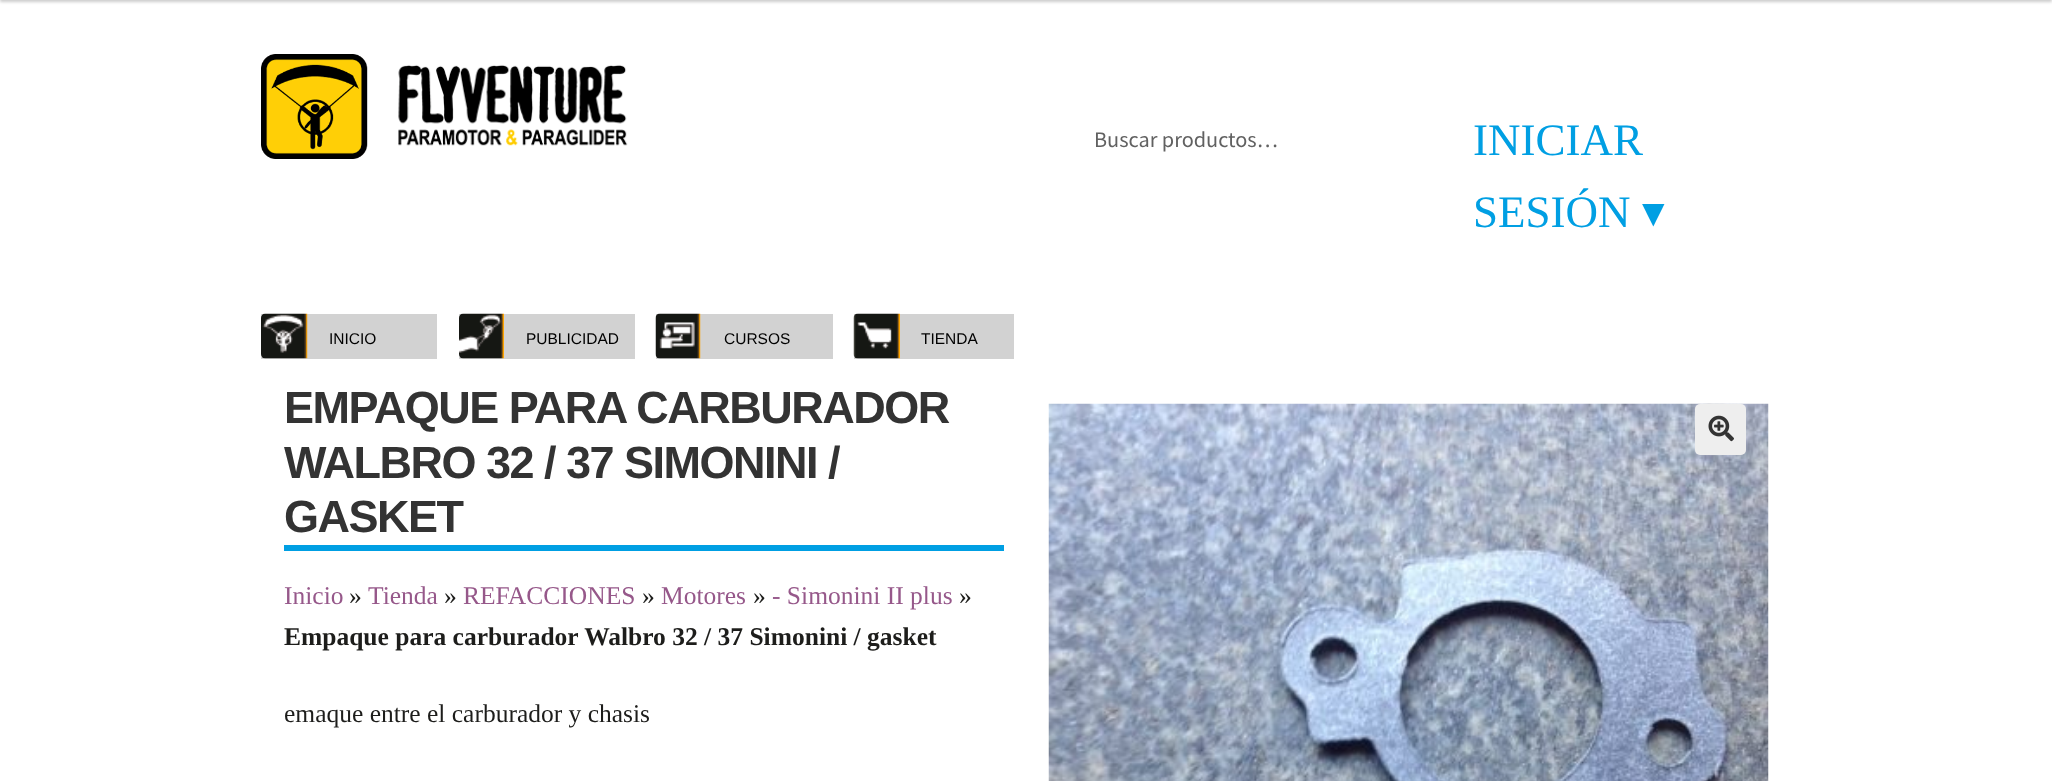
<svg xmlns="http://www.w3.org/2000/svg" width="2052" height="781">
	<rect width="100%" height="100%" fill="#FFFFFF" />
	<rect x="0" y="-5" width="2052" height="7" fill="#000000" fill-opacity="0.2" filter="blur(1.5px)" />
	<image x="261" y="54" width="367" height="105" href="assets/img1.png" />
	<image x="298" y="101" width="34" height="34" href="assets/img2.png" />
	<text x="1094" y="147" font-family="Source Sans Pro" font-size="22.25" fill="#616161">Buscar productos…</text>
	<g font-family="Liberation Serif" font-size="45" fill="#009FE3">
		<text x="1473" y="155">INICIAR</text>
		<text x="1473" y="227">SESIÓN</text>
	</g>
	<text x="1642" y="227" font-family="DejaVu Sans" font-size="45" fill="#009FE3">▾</text>
	<rect x="261" y="314" width="176" height="45" fill="#D2D2D2" />
	<image x="261" y="313" width="47" height="46" href="assets/img3.png" />
	<text x="329" y="344" font-family="Liberation Sans" font-size="15.5" fill="#000000">INICIO</text>
	<rect x="459" y="314" width="176" height="45" fill="#D2D2D2" />
	<image x="459" y="313" width="45" height="46" href="assets/img4.png" />
	<text x="526" y="344" font-family="Liberation Sans" font-size="15.5" fill="#000000">PUBLICIDAD</text>
	<rect x="656" y="314" width="177" height="45" fill="#D2D2D2" />
	<image x="655" y="313" width="46" height="46" href="assets/img5.png" />
	<text x="724" y="344" font-family="Liberation Sans" font-size="15.5" fill="#000000">CURSOS</text>
	<rect x="854" y="314" width="160" height="45" fill="#D2D2D2" />
	<image x="853" y="313" width="47" height="46" href="assets/img6.png" />
	<text x="921" y="344" font-family="Liberation Sans" font-size="15.5" fill="#000000">TIENDA</text>
	<rect x="284" y="545" width="720" height="6" fill="#009FE3" />
	<g font-family="Liberation Sans" font-size="45" font-weight="700" letter-spacing="-1.5" fill="#333333">
		<text x="284" y="423">EMPAQUE PARA CARBURADOR</text>
		<text x="284" y="478">WALBRO 32 / 37 SIMONINI /</text>
		<text x="284" y="532">GASKET</text>
	</g>
	<text x="284" y="604" font-family="Liberation Serif" font-size="25.5" fill="#96588A">Inicio</text>
	<text x="349" y="604" font-family="Liberation Serif" font-size="25.5" fill="#1D1D1B">»</text>
	<text x="368" y="604" font-family="Liberation Serif" font-size="25.5" fill="#96588A">Tienda</text>
	<text x="444" y="604" font-family="Liberation Serif" font-size="25.5" fill="#1D1D1B">»</text>
	<text x="463" y="604" font-family="Liberation Serif" font-size="25.5" fill="#96588A">REFACCIONES</text>
	<text x="642" y="604" font-family="Liberation Serif" font-size="25.5" fill="#1D1D1B">»</text>
	<text x="661" y="604" font-family="Liberation Serif" font-size="25.5" fill="#96588A">Motores</text>
	<text x="753" y="604" font-family="Liberation Serif" font-size="25.5" fill="#1D1D1B">»</text>
	<text x="772" y="604" font-family="Liberation Serif" font-size="25.5" fill="#96588A">- Simonini II plus</text>
	<text x="959" y="604" font-family="Liberation Serif" font-size="25.5" fill="#1D1D1B">»</text>
	<text x="284" y="645" font-family="Liberation Serif" font-size="25.5" font-weight="700" fill="#1D1D1B">Empaque para carburador Walbro 32 / 37 Simonini / gasket</text>
	<text x="284" y="722" font-family="Liberation Serif" font-size="25.5" fill="#1D1D1B">emaque entre el carburador y chasis</text>
	<image x="1048" y="403" width="721" height="378" href="assets/img7.png" />
	<rect x="1695" y="404" width="51" height="51" rx="5" fill="#EEEEEE" />
	<image x="1708" y="415" width="26" height="27" href="assets/img8.png" />
</svg>
